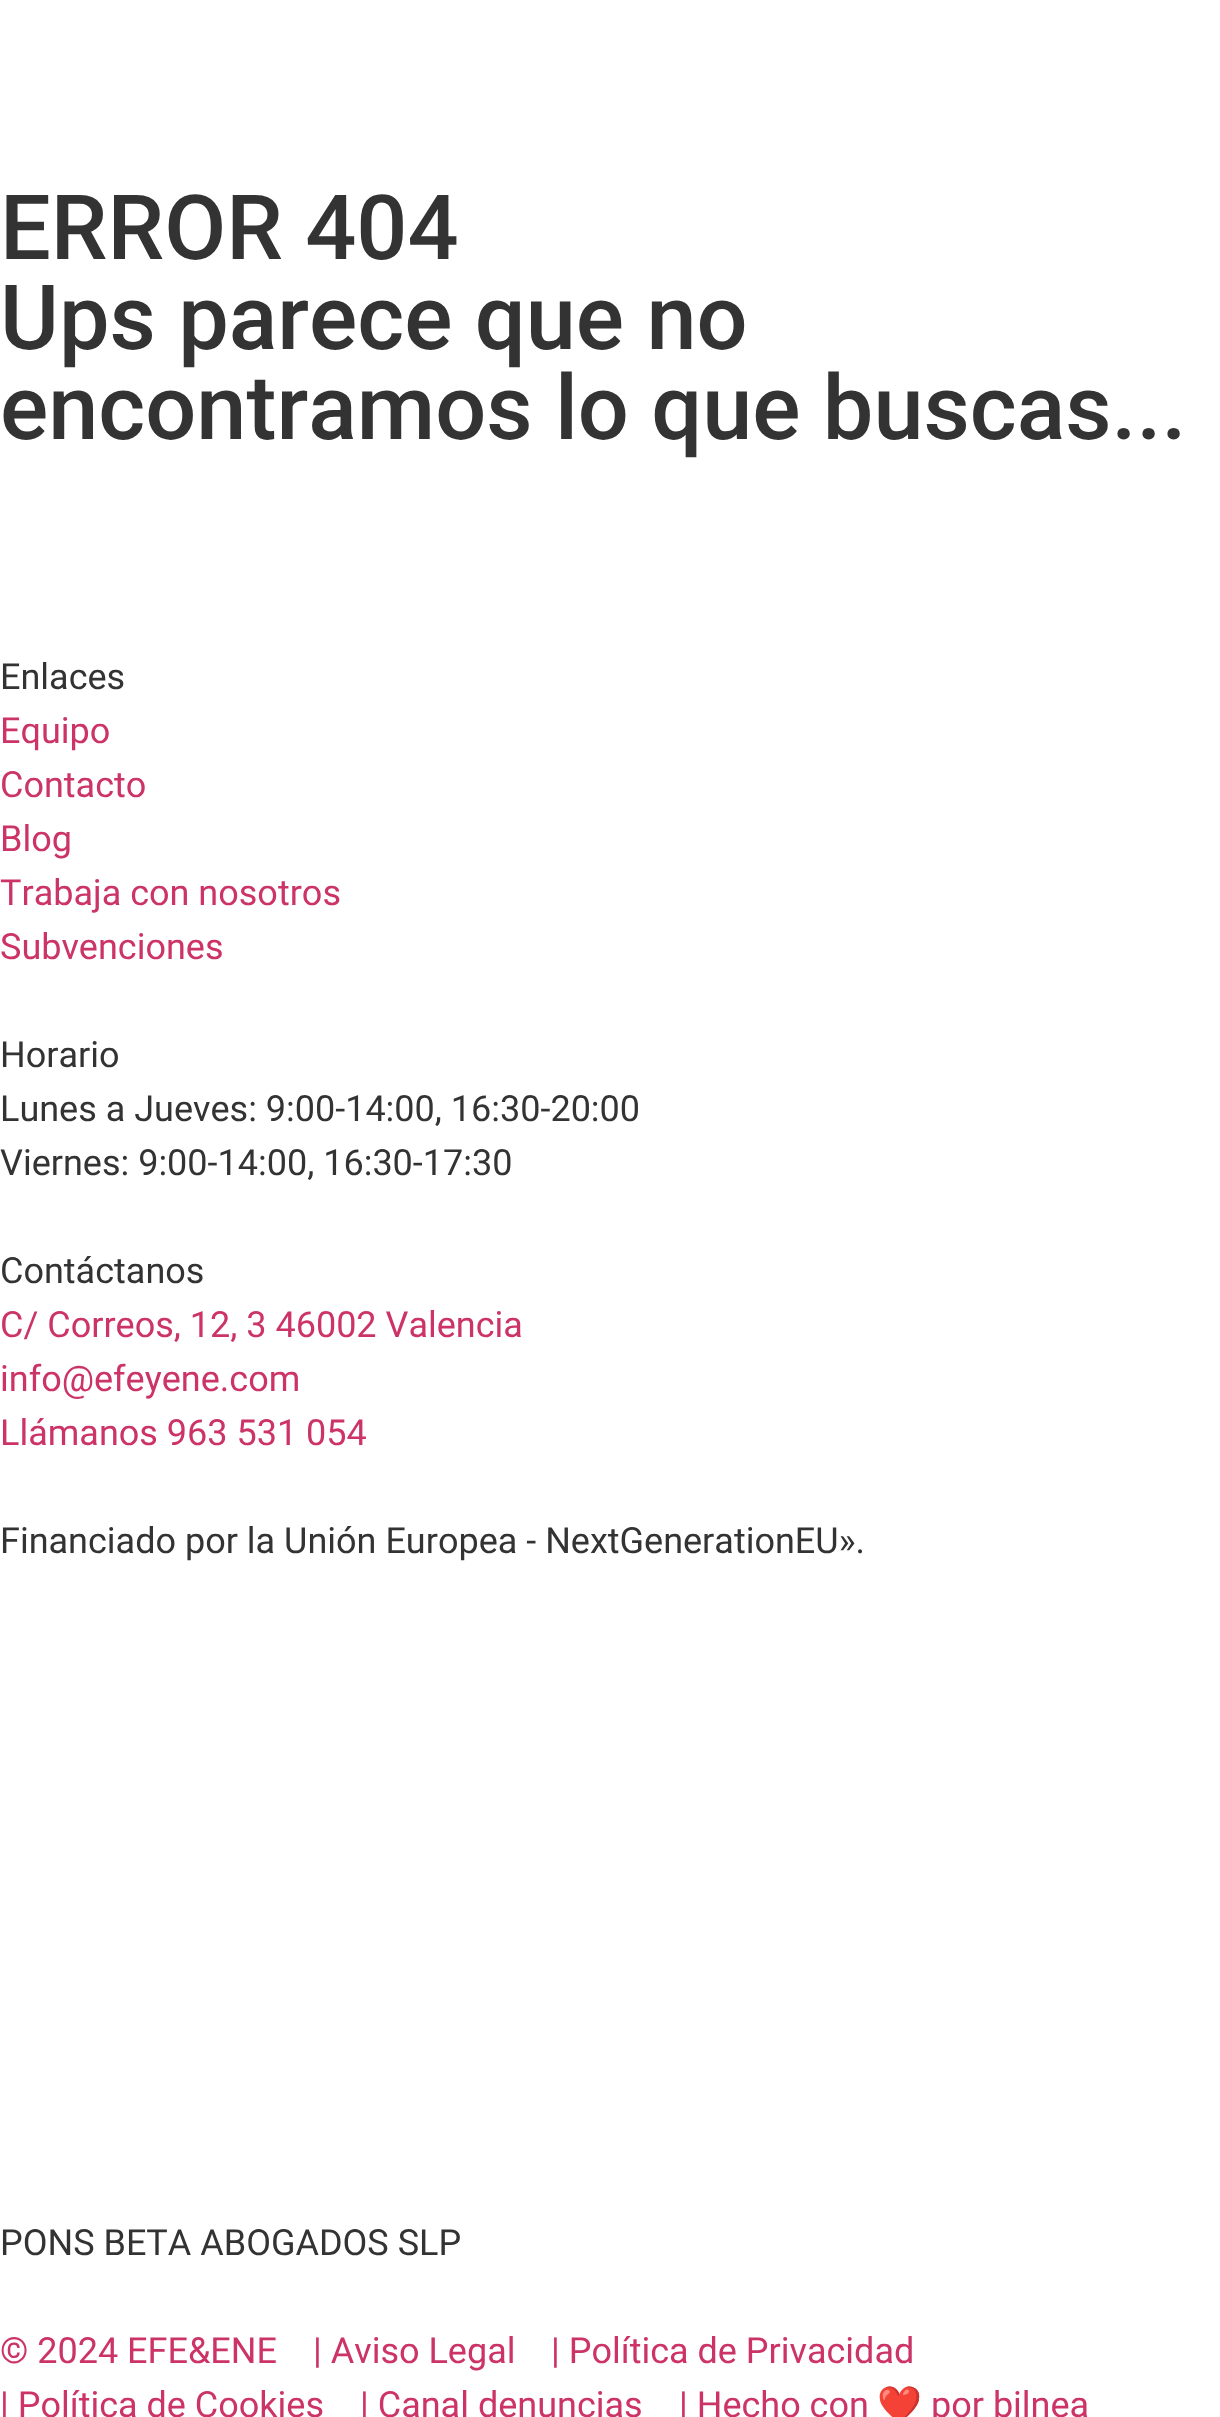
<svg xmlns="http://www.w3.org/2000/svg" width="1220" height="2417">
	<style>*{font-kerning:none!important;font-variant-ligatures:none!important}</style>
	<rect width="100%" height="100%" fill="#FFFFFF" />
	<g font-family="Roboto" font-size="90" font-weight="500" fill="#333333">
		<text x="0" y="259">ERROR 404</text>
		<text x="0" y="349">Ups parece que no</text>
		<text x="0" y="439">encontramos lo que buscas...</text>
	</g>
	<text x="0" y="689" font-family="Roboto" font-size="36" fill="#333333">Enlaces</text>
	<g font-family="Roboto" font-size="36" fill="#CC3366">
		<text x="0" y="743">Equipo</text>
		<text x="0" y="797">Contacto</text>
		<text x="0" y="851">Blog</text>
		<text x="0" y="905">Trabaja con nosotros</text>
		<text x="0" y="959">Subvenciones</text>
	</g>
	<g font-family="Roboto" font-size="36" fill="#333333">
		<text x="0" y="1067">Horario</text>
		<text x="0" y="1121">Lunes a Jueves: 9:00-14:00, 16:30-20:00</text>
		<text x="0" y="1175">Viernes: 9:00-14:00, 16:30-17:30</text>
		<text x="0" y="1283">Contáctanos</text>
	</g>
	<g font-family="Roboto" font-size="36" fill="#CC3366">
		<text x="0" y="1337">C/ Correos, 12, 3 46002 Valencia</text>
		<text x="0" y="1391">info@efeyene.com</text>
		<text x="0" y="1445">Llámanos 963 531 054</text>
	</g>
	<g font-family="Roboto" font-size="36" fill="#333333">
		<text x="0" y="1553">Financiado por la Unión Europea - NextGenerationEU».</text>
		<text x="0" y="2255">PONS BETA ABOGADOS SLP</text>
	</g>
	<g font-family="Roboto" font-size="36" fill="#CC3366">
		<text x="0" y="2363">© 2024 EFE&amp;ENE</text>
		<text x="313" y="2363">| Aviso Legal</text>
		<text x="551" y="2363">| Política de Privacidad</text>
		<text x="0" y="2417">| Política de Cookies</text>
		<text x="360" y="2417">| Canal denuncias</text>
		<text x="679" y="2417">| Hecho con</text>
	</g>
	<text x="877" y="2417" font-family="Noto Color Emoji" font-size="36" fill="#CC3366">❤</text>
	<text x="931" y="2417" font-family="Roboto" font-size="36" fill="#CC3366">por bilnea</text>
</svg>
